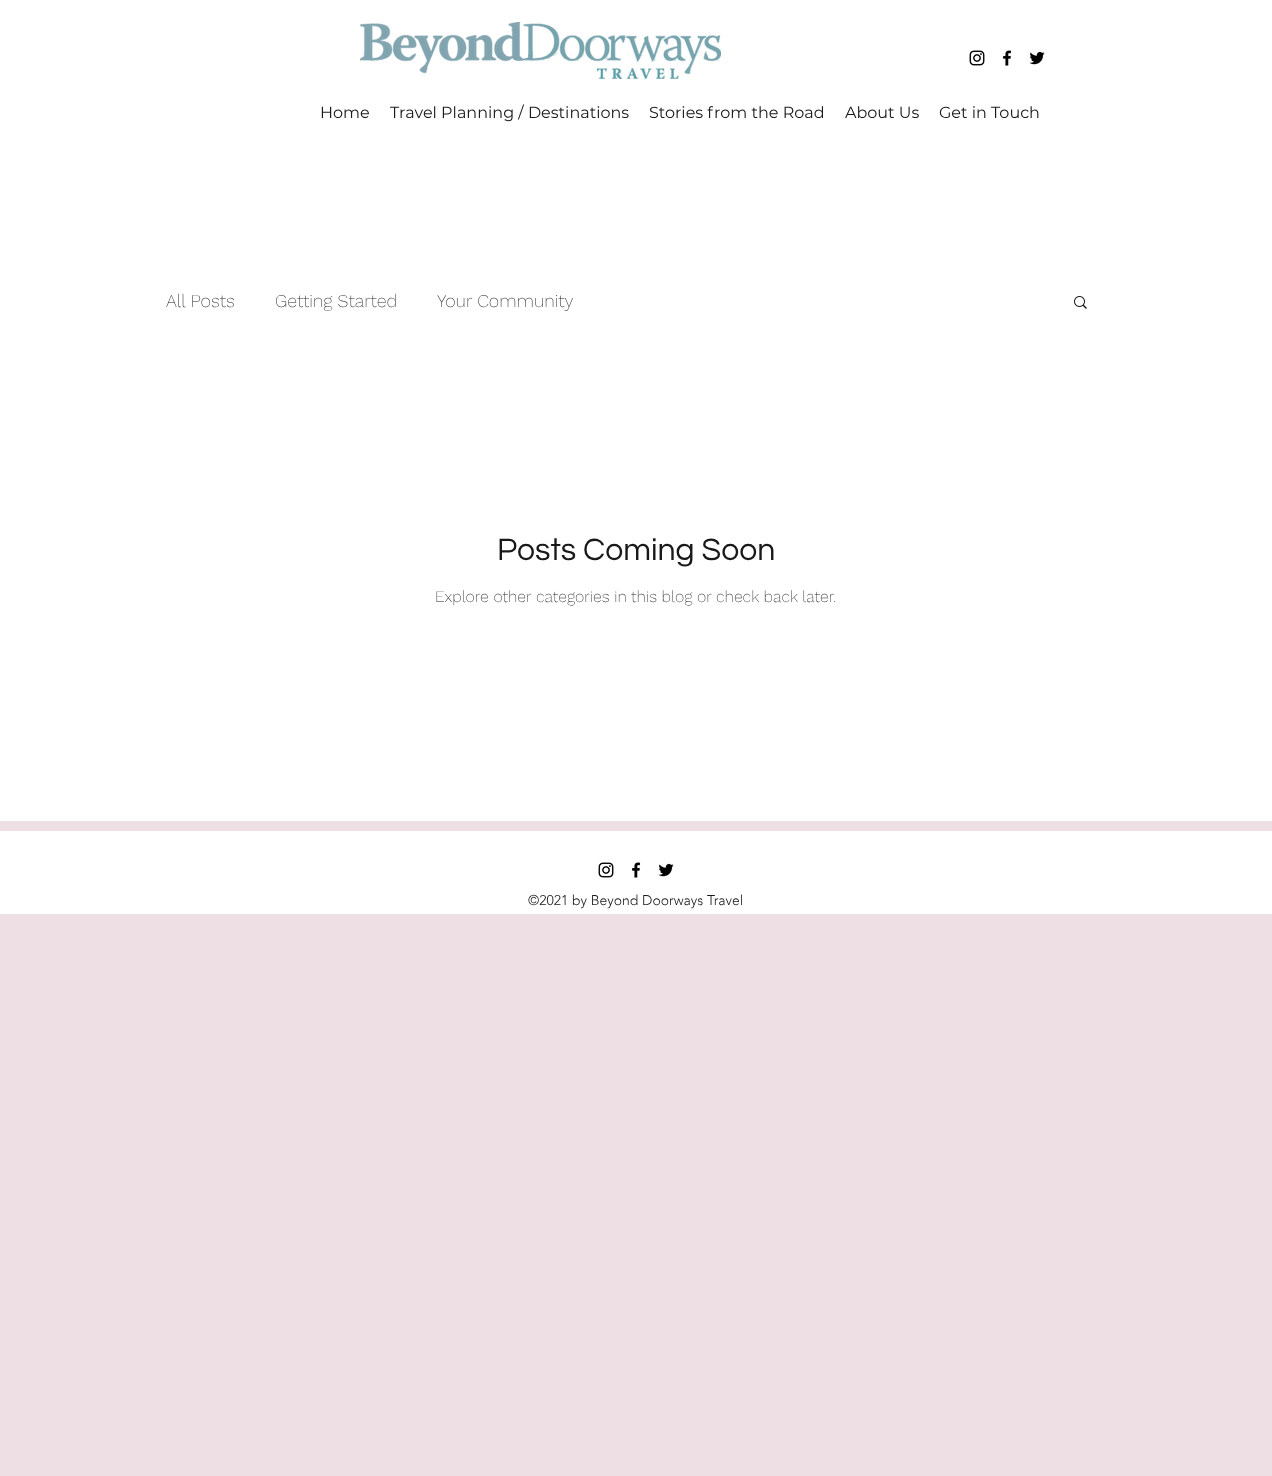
<svg xmlns="http://www.w3.org/2000/svg" width="1272" height="1476">
	<rect width="100%" height="100%" fill="#EDDFE4" />
	<rect x="0" y="0" width="1272" height="821" fill="#FFFFFF" />
	<image x="360" y="22" width="361" height="57" href="assets/img1.png" />
	<image x="969" y="50" width="16" height="16" href="assets/img2.png" />
	<image x="1003" y="50" width="9" height="16" href="assets/img3.png" />
	<image x="1029" y="51" width="16" height="14" href="assets/img4.png" />
	<g font-family="Montserrat" font-size="16" fill="#181818">
		<text x="320" y="118">Home</text>
		<text x="390" y="118">Travel Planning / Destinations</text>
		<text x="649" y="118">Stories from the Road</text>
		<text x="845" y="118">About Us</text>
		<text x="939" y="118">Get in Touch</text>
	</g>
	<text x="166" y="307" font-family="Work Sans" font-size="18" font-weight="200" fill="#181818">All Posts</text>
	<text x="275" y="307" font-family="Work Sans" font-size="18" font-weight="200" fill="#282828">Getting Started</text>
	<text x="437" y="307" font-family="Work Sans" font-size="18" font-weight="200" fill="#181818">Your Community</text>
	<image x="1074" y="296" width="13" height="13" href="assets/img5.png" />
	<text x="497" y="560" font-family="Questrial" font-size="32" fill="#181818">Posts Coming Soon</text>
	<text x="435" y="602" font-family="Work Sans" font-size="16" font-weight="200" fill="#181818">Explore other categories in this blog or check back later.</text>
	<rect x="0" y="831" width="1272" height="83" fill="#FFFFFF" />
	<image x="598" y="862" width="16" height="16" href="assets/img2.png" />
	<image x="632" y="862" width="9" height="16" href="assets/img3.png" />
	<image x="658" y="863" width="16" height="14" href="assets/img4.png" />
	<text x="528" y="905" font-family="'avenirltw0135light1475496'" font-size="14" font-weight="300" fill="#181818">©2021 by Beyond Doorways Travel</text>
</svg>
